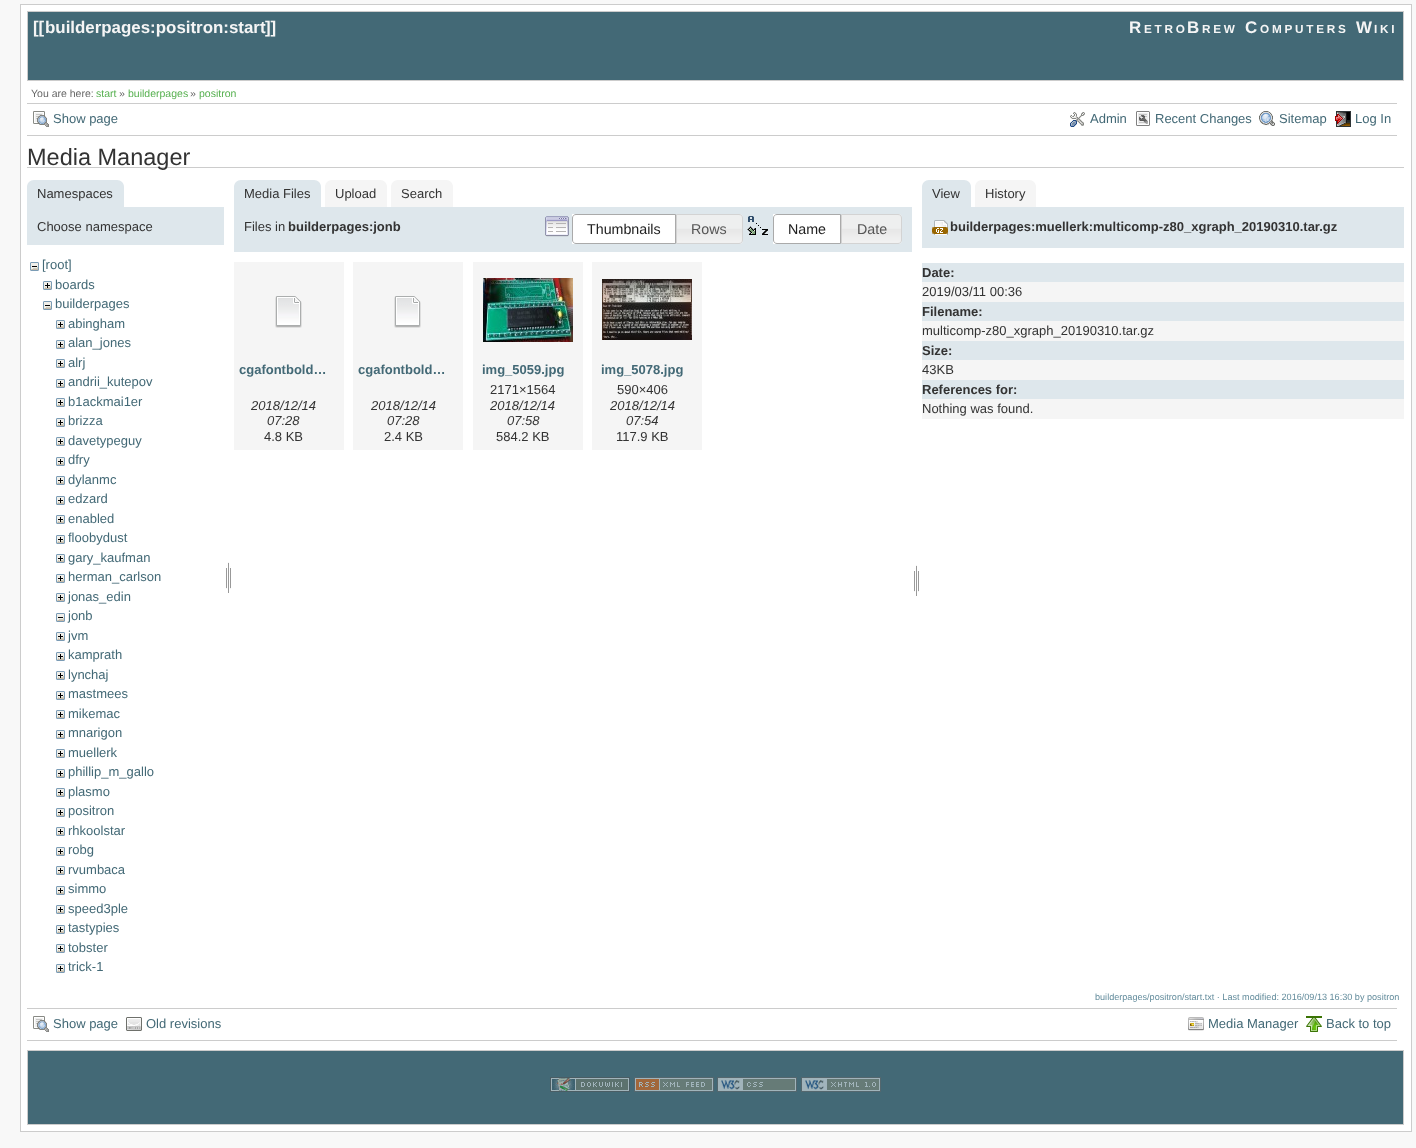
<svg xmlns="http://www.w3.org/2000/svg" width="1416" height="1148">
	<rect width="100%" height="100%" fill="#F8F8F8" />
	<rect x="20.5" y="4.5" width="1391" height="1127" fill="#FFFFFF" stroke="#CCCCCC" />
	<rect x="27.5" y="11.5" width="1376" height="69" fill="#436976" stroke="#CCCCCC" />
	<g font-family="Liberation Sans" font-size="16.9" font-weight="700" fill="#F5F5F5">
		<text x="33" y="33">[[</text>
		<text x="45" y="33">builderpages:positron:start</text>
		<text x="265" y="33">]]</text>
	</g>
	<text x="1129" y="33" font-family="Liberation Sans" font-size="16.9" font-weight="700" letter-spacing="2.75" fill="#F5F5F5">R</text>
	<text x="1144" y="33" font-family="Liberation Sans" font-size="11.75" font-weight="700" letter-spacing="2.75" fill="#F5F5F5">ETRO</text>
	<text x="1187" y="33" font-family="Liberation Sans" font-size="16.9" font-weight="700" letter-spacing="2.75" fill="#F5F5F5">B</text>
	<text x="1202" y="33" font-family="Liberation Sans" font-size="11.75" font-weight="700" letter-spacing="2.75" fill="#F5F5F5">REW</text>
	<text x="1245" y="33" font-family="Liberation Sans" font-size="16.9" font-weight="700" letter-spacing="2.75" fill="#F5F5F5">C</text>
	<text x="1260" y="33" font-family="Liberation Sans" font-size="11.75" font-weight="700" letter-spacing="2.75" fill="#F5F5F5">OMPUTERS</text>
	<text x="1356" y="33" font-family="Liberation Sans" font-size="16.9" font-weight="700" letter-spacing="2.75" fill="#F5F5F5">W</text>
	<text x="1374" y="33" font-family="Liberation Sans" font-size="11.75" font-weight="700" letter-spacing="2.75" fill="#F5F5F5">IKI</text>
	<text x="31" y="97" font-family="Liberation Sans" font-size="10.5" fill="#666666">You are here:</text>
	<text x="96" y="97" font-family="Liberation Sans" font-size="10.5" fill="#56B04F">start</text>
	<text x="119" y="97" font-family="Liberation Sans" font-size="10.5" fill="#666666">»</text>
	<text x="128" y="97" font-family="Liberation Sans" font-size="10.5" fill="#56B04F">builderpages</text>
	<text x="190" y="97" font-family="Liberation Sans" font-size="10.5" fill="#666666">»</text>
	<text x="199" y="97" font-family="Liberation Sans" font-size="10.5" fill="#56B04F">positron</text>
	<rect x="27" y="103" width="1370" height="1" fill="#CCCCCC" />
	<rect x="27" y="135" width="1370" height="1" fill="#CCCCCC" />
	<image x="33" y="111" width="16" height="16" href="assets/img1.png" />
	<text x="53" y="123" font-family="Liberation Sans" font-size="13" fill="#436976">Show page</text>
	<image x="1070" y="112" width="15" height="15" href="assets/img2.png" />
	<text x="1090" y="123" font-family="Liberation Sans" font-size="13" fill="#436976">Admin</text>
	<image x="1136" y="111" width="14" height="15" href="assets/img3.png" />
	<text x="1155" y="123" font-family="Liberation Sans" font-size="13" fill="#436976">Recent Changes</text>
	<image x="1259" y="111" width="16" height="15" href="assets/img4.png" />
	<text x="1279" y="123" font-family="Liberation Sans" font-size="13" fill="#436976">Sitemap</text>
	<image x="1335" y="111" width="16" height="16" href="assets/img5.png" />
	<text x="1355" y="123" font-family="Liberation Sans" font-size="13" fill="#436976">Log In</text>
	<rect x="27" y="167" width="1377" height="1" fill="#CCCCCC" />
	<text x="27" y="165" font-family="Liberation Sans" font-size="23.5" fill="#333333">Media Manager</text>
	<path d="M34 180H117C121 180 124 183 124 187V207H27V187C27 183 30 180 34 180Z" fill="#DEE7EC" />
	<text x="37" y="198" font-family="Liberation Sans" font-size="13" fill="#333333">Namespaces</text>
	<rect x="27" y="207" width="197" height="38" fill="#DEE7EC" />
	<text x="37" y="231" font-family="Liberation Sans" font-size="13" fill="#333333">Choose namespace</text>
	<image x="30" y="262" width="9" height="9" href="assets/img6.png" />
	<text x="42" y="269" font-family="Liberation Sans" font-size="13" fill="#436976">[root]</text>
	<image x="43" y="281" width="9" height="9" href="assets/img7.png" />
	<text x="55" y="289" font-family="Liberation Sans" font-size="13" fill="#436976">boards</text>
	<image x="43" y="301" width="9" height="9" href="assets/img6.png" />
	<text x="55" y="308" font-family="Liberation Sans" font-size="13" fill="#436976">builderpages</text>
	<image x="56" y="320" width="9" height="9" href="assets/img7.png" />
	<text x="68" y="328" font-family="Liberation Sans" font-size="13" fill="#436976">abingham</text>
	<image x="56" y="340" width="9" height="9" href="assets/img7.png" />
	<text x="68" y="347" font-family="Liberation Sans" font-size="13" fill="#436976">alan_jones</text>
	<image x="56" y="359" width="9" height="9" href="assets/img7.png" />
	<text x="68" y="367" font-family="Liberation Sans" font-size="13" fill="#436976">alrj</text>
	<image x="56" y="379" width="9" height="9" href="assets/img7.png" />
	<text x="68" y="386" font-family="Liberation Sans" font-size="13" fill="#436976">andrii_kutepov</text>
	<image x="56" y="398" width="9" height="9" href="assets/img7.png" />
	<text x="68" y="406" font-family="Liberation Sans" font-size="13" fill="#436976">b1ackmai1er</text>
	<image x="56" y="418" width="9" height="9" href="assets/img7.png" />
	<text x="68" y="425" font-family="Liberation Sans" font-size="13" fill="#436976">brizza</text>
	<image x="56" y="437" width="9" height="9" href="assets/img7.png" />
	<text x="68" y="445" font-family="Liberation Sans" font-size="13" fill="#436976">davetypeguy</text>
	<image x="56" y="457" width="9" height="9" href="assets/img7.png" />
	<text x="68" y="464" font-family="Liberation Sans" font-size="13" fill="#436976">dfry</text>
	<image x="56" y="476" width="9" height="9" href="assets/img7.png" />
	<text x="68" y="484" font-family="Liberation Sans" font-size="13" fill="#436976">dylanmc</text>
	<image x="56" y="496" width="9" height="9" href="assets/img7.png" />
	<text x="68" y="503" font-family="Liberation Sans" font-size="13" fill="#436976">edzard</text>
	<image x="56" y="515" width="9" height="9" href="assets/img7.png" />
	<text x="68" y="523" font-family="Liberation Sans" font-size="13" fill="#436976">enabled</text>
	<image x="56" y="535" width="9" height="9" href="assets/img7.png" />
	<text x="68" y="542" font-family="Liberation Sans" font-size="13" fill="#436976">floobydust</text>
	<image x="56" y="554" width="9" height="9" href="assets/img7.png" />
	<text x="68" y="562" font-family="Liberation Sans" font-size="13" fill="#436976">gary_kaufman</text>
	<image x="56" y="574" width="9" height="9" href="assets/img7.png" />
	<text x="68" y="581" font-family="Liberation Sans" font-size="13" fill="#436976">herman_carlson</text>
	<image x="56" y="593" width="9" height="9" href="assets/img7.png" />
	<text x="68" y="601" font-family="Liberation Sans" font-size="13" fill="#436976">jonas_edin</text>
	<image x="56" y="613" width="9" height="9" href="assets/img6.png" />
	<text x="68" y="620" font-family="Liberation Sans" font-size="13" fill="#436976">jonb</text>
	<image x="56" y="632" width="9" height="9" href="assets/img7.png" />
	<text x="68" y="640" font-family="Liberation Sans" font-size="13" fill="#436976">jvm</text>
	<image x="56" y="652" width="9" height="9" href="assets/img7.png" />
	<text x="68" y="659" font-family="Liberation Sans" font-size="13" fill="#436976">kamprath</text>
	<image x="56" y="671" width="9" height="9" href="assets/img7.png" />
	<text x="68" y="679" font-family="Liberation Sans" font-size="13" fill="#436976">lynchaj</text>
	<image x="56" y="691" width="9" height="9" href="assets/img7.png" />
	<text x="68" y="698" font-family="Liberation Sans" font-size="13" fill="#436976">mastmees</text>
	<image x="56" y="710" width="9" height="9" href="assets/img7.png" />
	<text x="68" y="718" font-family="Liberation Sans" font-size="13" fill="#436976">mikemac</text>
	<image x="56" y="730" width="9" height="9" href="assets/img7.png" />
	<text x="68" y="737" font-family="Liberation Sans" font-size="13" fill="#436976">mnarigon</text>
	<image x="56" y="749" width="9" height="9" href="assets/img7.png" />
	<text x="68" y="757" font-family="Liberation Sans" font-size="13" fill="#436976">muellerk</text>
	<image x="56" y="769" width="9" height="9" href="assets/img7.png" />
	<text x="68" y="776" font-family="Liberation Sans" font-size="13" fill="#436976">phillip_m_gallo</text>
	<image x="56" y="788" width="9" height="9" href="assets/img7.png" />
	<text x="68" y="796" font-family="Liberation Sans" font-size="13" fill="#436976">plasmo</text>
	<image x="56" y="808" width="9" height="9" href="assets/img7.png" />
	<text x="68" y="815" font-family="Liberation Sans" font-size="13" fill="#436976">positron</text>
	<image x="56" y="827" width="9" height="9" href="assets/img7.png" />
	<text x="68" y="835" font-family="Liberation Sans" font-size="13" fill="#436976">rhkoolstar</text>
	<image x="56" y="847" width="9" height="9" href="assets/img7.png" />
	<text x="68" y="854" font-family="Liberation Sans" font-size="13" fill="#436976">robg</text>
	<image x="56" y="866" width="9" height="9" href="assets/img7.png" />
	<text x="68" y="874" font-family="Liberation Sans" font-size="13" fill="#436976">rvumbaca</text>
	<image x="56" y="886" width="9" height="9" href="assets/img7.png" />
	<text x="68" y="893" font-family="Liberation Sans" font-size="13" fill="#436976">simmo</text>
	<image x="56" y="905" width="9" height="9" href="assets/img7.png" />
	<text x="68" y="913" font-family="Liberation Sans" font-size="13" fill="#436976">speed3ple</text>
	<image x="56" y="925" width="9" height="9" href="assets/img7.png" />
	<text x="68" y="932" font-family="Liberation Sans" font-size="13" fill="#436976">tastypies</text>
	<image x="56" y="944" width="9" height="9" href="assets/img7.png" />
	<text x="68" y="952" font-family="Liberation Sans" font-size="13" fill="#436976">tobster</text>
	<image x="56" y="964" width="9" height="9" href="assets/img7.png" />
	<text x="68" y="971" font-family="Liberation Sans" font-size="13" fill="#436976">trick-1</text>
	<image x="226" y="562" width="5" height="31" href="assets/img8.png" />
	<path d="M241 180H314C318 180 321 183 321 187V207H234V187C234 183 237 180 241 180Z" fill="#DEE7EC" />
	<text x="244" y="198" font-family="Liberation Sans" font-size="13" fill="#333333">Media Files</text>
	<path d="M332 180H380C384 180 387 183 387 187V207H325V187C325 183 328 180 332 180Z" fill="#F5F5F5" />
	<text x="335" y="198" font-family="Liberation Sans" font-size="13" fill="#333333">Upload</text>
	<path d="M398 180H446C450 180 453 183 453 187V207H391V187C391 183 394 180 398 180Z" fill="#F5F5F5" />
	<text x="401" y="198" font-family="Liberation Sans" font-size="13" fill="#333333">Search</text>
	<rect x="234" y="207" width="678" height="45" fill="#DEE7EC" />
	<text x="244" y="231" font-family="Liberation Sans" font-size="13" fill="#333333">Files in</text>
	<text x="288" y="231" font-family="Liberation Sans" font-size="13" font-weight="700" fill="#333333">builderpages:jonb</text>
	<image x="545" y="216" width="24" height="21" href="assets/img9.png" />
	<rect x="572" y="214" width="103" height="30" fill="#FFFFFF" />
	<path d="M576 214.5H675.5V243.5H576C574 243.5 572.5 242 572.5 240V218C572.5 216 574 214.5 576 214.5Z" fill="none" stroke="#AAAAAA" />
	<text x="587" y="234" font-family="Liberation Sans" font-size="14.25" fill="#212121">Thumbnails</text>
	<image x="677" y="214" width="66" height="30" href="assets/img10.png" />
	<path d="M676.5 214.5H739C741 214.5 742.5 216 742.5 218V240C742.5 242 741 243.5 739 243.5H676.5Z" fill="none" stroke="#D3D3D3" />
	<text x="691" y="234" font-family="Liberation Sans" font-size="14.25" fill="#555555">Rows</text>
	<image x="747" y="216" width="21" height="19" href="assets/img11.png" />
	<rect x="773" y="214" width="67" height="30" fill="#FFFFFF" />
	<path d="M777 214.5H840.5V243.5H777C775 243.5 773.5 242 773.5 240V218C773.5 216 775 214.5 777 214.5Z" fill="none" stroke="#AAAAAA" />
	<text x="788" y="234" font-family="Liberation Sans" font-size="14.25" fill="#212121">Name</text>
	<image x="842" y="214" width="60" height="30" href="assets/img12.png" />
	<path d="M841.5 214.5H898C900 214.5 901.5 216 901.5 218V240C901.5 242 900 243.5 898 243.5H841.5Z" fill="none" stroke="#D3D3D3" />
	<text x="857" y="234" font-family="Liberation Sans" font-size="14.25" fill="#555555">Date</text>
	<rect x="234" y="262" width="110" height="188" fill="#F5F5F5" />
	<image x="275" y="296" width="27" height="32" href="assets/img13.png" />
	<text x="239" y="374" font-family="Liberation Sans" font-size="13" font-weight="700" fill="#436976">cgafontbold…</text>
	<g font-family="Liberation Sans" font-size="13" font-style="italic" fill="#333333">
		<text x="251" y="410">2018/12/14</text>
		<text x="267" y="425">07:28</text>
	</g>
	<text x="264" y="441" font-family="Liberation Sans" font-size="13" fill="#333333">4.8 KB</text>
	<rect x="353" y="262" width="110" height="188" fill="#F5F5F5" />
	<image x="394" y="296" width="27" height="32" href="assets/img13.png" />
	<text x="358" y="374" font-family="Liberation Sans" font-size="13" font-weight="700" fill="#436976">cgafontbold…</text>
	<g font-family="Liberation Sans" font-size="13" font-style="italic" fill="#333333">
		<text x="371" y="410">2018/12/14</text>
		<text x="387" y="425">07:28</text>
	</g>
	<text x="384" y="441" font-family="Liberation Sans" font-size="13" fill="#333333">2.4 KB</text>
	<rect x="473" y="262" width="110" height="188" fill="#F5F5F5" />
	<image x="483" y="278" width="90" height="64" href="assets/img14.png" />
	<text x="482" y="374" font-family="Liberation Sans" font-size="13" font-weight="700" fill="#436976">img_5059.jpg</text>
	<text x="490" y="394" font-family="Liberation Sans" font-size="13" fill="#333333">2171×1564</text>
	<g font-family="Liberation Sans" font-size="13" font-style="italic" fill="#333333">
		<text x="490" y="410">2018/12/14</text>
		<text x="507" y="425">07:58</text>
	</g>
	<text x="496" y="441" font-family="Liberation Sans" font-size="13" fill="#333333">584.2 KB</text>
	<rect x="592" y="262" width="110" height="188" fill="#F5F5F5" />
	<image x="602" y="279" width="90" height="61" href="assets/img15.png" />
	<text x="601" y="374" font-family="Liberation Sans" font-size="13" font-weight="700" fill="#436976">img_5078.jpg</text>
	<text x="617" y="394" font-family="Liberation Sans" font-size="13" fill="#333333">590×406</text>
	<g font-family="Liberation Sans" font-size="13" font-style="italic" fill="#333333">
		<text x="610" y="410">2018/12/14</text>
		<text x="626" y="425">07:54</text>
	</g>
	<text x="616" y="441" font-family="Liberation Sans" font-size="13" fill="#333333">117.9 KB</text>
	<image x="914" y="565" width="5" height="31" href="assets/img8.png" />
	<path d="M929 180H964C968 180 971 183 971 187V207H922V187C922 183 925 180 929 180Z" fill="#DEE7EC" />
	<text x="932" y="198" font-family="Liberation Sans" font-size="13" fill="#333333">View</text>
	<path d="M982 180H1029C1033 180 1036 183 1036 187V207H975V187C975 183 978 180 982 180Z" fill="#F5F5F5" />
	<text x="985" y="198" font-family="Liberation Sans" font-size="13" fill="#333333">History</text>
	<rect x="922" y="207" width="482" height="41" fill="#DEE7EC" />
	<image x="932" y="220" width="16" height="15" href="assets/img16.png" />
	<text x="950" y="231" font-family="Liberation Sans" font-size="13" font-weight="700" fill="#333333">builderpages:muellerk:multicomp-z80_xgraph_20190310.tar.gz</text>
	<rect x="922" y="263" width="482" height="19" fill="#DEE7EC" />
	<text x="922" y="277" font-family="Liberation Sans" font-size="13" font-weight="700" fill="#333333">Date:</text>
	<rect x="922" y="282" width="482" height="20" fill="#F5F5F5" />
	<text x="922" y="296" font-family="Liberation Sans" font-size="13" fill="#333333">2019/03/11 00:36</text>
	<rect x="922" y="302" width="482" height="19" fill="#DEE7EC" />
	<text x="922" y="316" font-family="Liberation Sans" font-size="13" font-weight="700" fill="#333333">Filename:</text>
	<rect x="922" y="321" width="482" height="20" fill="#F5F5F5" />
	<text x="922" y="335" font-family="Liberation Sans" font-size="13" fill="#333333">multicomp-z80_xgraph_20190310.tar.gz</text>
	<rect x="922" y="341" width="482" height="19" fill="#DEE7EC" />
	<text x="922" y="355" font-family="Liberation Sans" font-size="13" font-weight="700" fill="#333333">Size:</text>
	<rect x="922" y="360" width="482" height="20" fill="#F5F5F5" />
	<text x="922" y="374" font-family="Liberation Sans" font-size="13" fill="#333333">43KB</text>
	<rect x="922" y="380" width="482" height="19" fill="#DEE7EC" />
	<text x="922" y="394" font-family="Liberation Sans" font-size="13" font-weight="700" fill="#333333">References for:</text>
	<rect x="922" y="399" width="482" height="20" fill="#F5F5F5" />
	<text x="922" y="413" font-family="Liberation Sans" font-size="13" fill="#333333">Nothing was found.</text>
	<text x="1095" y="1000" font-family="Liberation Sans" font-size="9.1" fill="#638C9C">builderpages/positron/start.txt · Last modified: 2016/09/13 16:30 by positron</text>
	<rect x="27" y="1008" width="1370" height="1" fill="#CCCCCC" />
	<rect x="27" y="1040" width="1370" height="1" fill="#CCCCCC" />
	<image x="33" y="1016" width="16" height="16" href="assets/img1.png" />
	<text x="53" y="1028" font-family="Liberation Sans" font-size="13" fill="#436976">Show page</text>
	<image x="126" y="1017" width="16" height="14" href="assets/img17.png" />
	<text x="146" y="1028" font-family="Liberation Sans" font-size="13" fill="#436976">Old revisions</text>
	<image x="1188" y="1017" width="16" height="14" href="assets/img18.png" />
	<text x="1208" y="1028" font-family="Liberation Sans" font-size="13" fill="#436976">Media Manager</text>
	<image x="1306" y="1016" width="16" height="16" href="assets/img19.png" />
	<text x="1326" y="1028" font-family="Liberation Sans" font-size="13" fill="#436976">Back to top</text>
	<rect x="27.5" y="1050.5" width="1376" height="74" fill="#436976" stroke="#CCCCCC" />
	<image x="550" y="1077" width="80" height="15" href="assets/img20.png" />
	<image x="634" y="1077" width="80" height="15" href="assets/img21.png" />
	<image x="717" y="1077" width="80" height="15" href="assets/img22.png" />
	<image x="801" y="1077" width="80" height="15" href="assets/img23.png" />
</svg>
